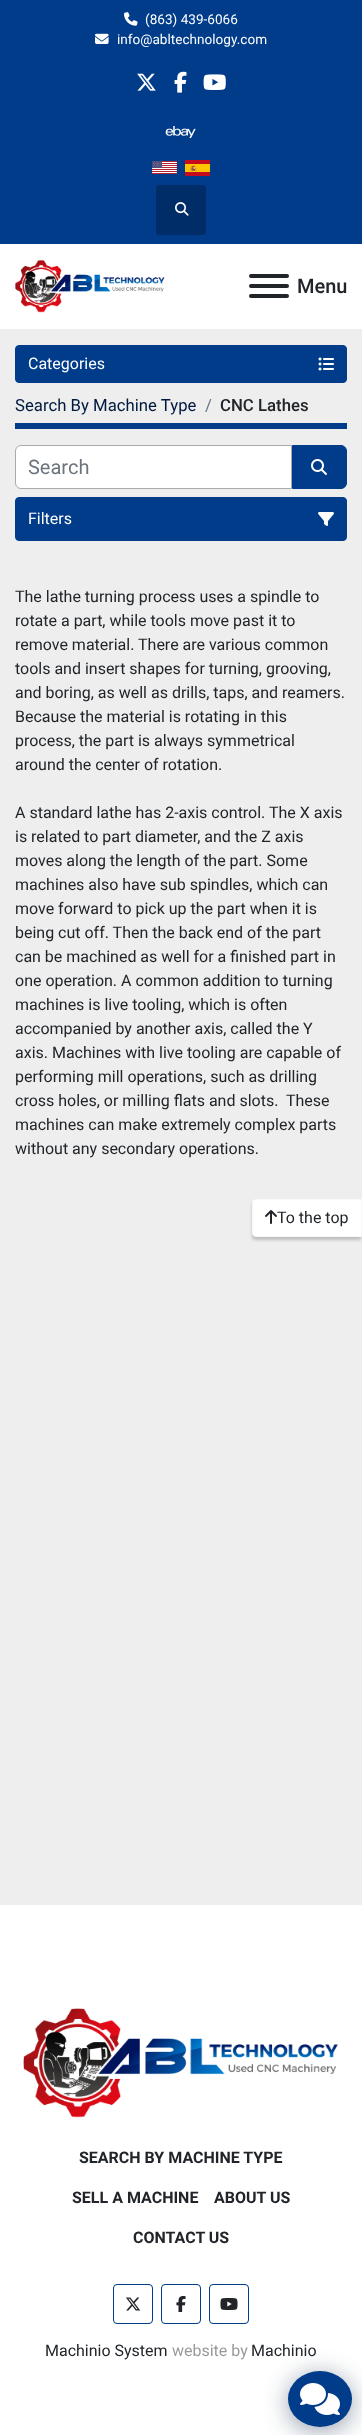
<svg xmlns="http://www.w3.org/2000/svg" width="362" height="2435">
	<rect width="100%" height="100%" fill="#EEEEEE" />
	<rect x="0" y="0" width="362" height="244" fill="#003C89" />
	<image x="124" y="12" width="14" height="14" href="assets/img1.png" />
	<text x="145" y="24" font-family="Roboto" font-size="13.6" fill="#FFFFFF">(863) 439-6066</text>
	<image x="95" y="33" width="14" height="11" href="assets/img2.png" />
	<text x="117" y="44" font-family="Roboto" font-size="13.6" fill="#FFFFFF">info@abltechnology.com</text>
	<image x="137" y="73" width="19" height="18" href="assets/img3.png" />
	<image x="174" y="71" width="13" height="22" href="assets/img4.png" />
	<image x="203" y="74" width="23" height="16" href="assets/img5.png" />
	<image x="165" y="126" width="31" height="12" href="assets/img6.png" />
	<image x="152" y="161" width="25" height="13" href="assets/img7.png" />
	<image x="185" y="160" width="25" height="16" href="assets/img8.png" />
	<rect x="156" y="185" width="50" height="50" rx="3" fill="#002D67" />
	<image x="175" y="202" width="14" height="14" href="assets/img9.png" />
	<rect x="0" y="244" width="362" height="85" fill="#FFFFFF" />
	<image x="15" y="260" width="150" height="53" href="assets/img10.png" />
	<rect x="249" y="284" width="40" height="4" rx="2" fill="#212529" />
	<rect x="249" y="274" width="40" height="4" rx="2" fill="#212529" />
	<rect x="249" y="294" width="40" height="4" rx="2" fill="#212529" />
	<text x="297" y="293" font-family="Roboto" font-size="20" font-weight="500" fill="#212529">Menu</text>
	<rect x="15.5" y="345.5" width="331" height="37" rx="3.5" fill="#003C89" stroke="#003C89" />
	<text x="28" y="369" font-family="Roboto" font-size="16" fill="#FFFFFF">Categories</text>
	<image x="318" y="357" width="16" height="14" href="assets/img11.png" />
	<rect x="15" y="423" width="332" height="6" fill="#003C89" />
	<text x="15" y="411" font-family="Roboto" font-size="16.75" fill="#001A3D">Search By Machine Type</text>
	<text x="205" y="411" font-family="Roboto" font-size="16.75" fill="#6C757D">/</text>
	<text x="220" y="411" font-family="Roboto" font-size="16.75" font-weight="500" fill="#212529">CNC Lathes</text>
	<path d="M21 445.5H291.5V488.5H21C18 488.5 15.5 486 15.5 483V451C15.5 448 18 445.5 21 445.5Z" fill="#FFFFFF" stroke="#AAAAAA" />
	<text x="28" y="474" font-family="Roboto" font-size="20" fill="#6C757D">Search</text>
	<path d="M292.5 445.5H341C344 445.5 346.5 448 346.5 451V483C346.5 486 344 488.5 341 488.5H292.5Z" fill="#003C89" stroke="#003C89" />
	<image x="311" y="459" width="16" height="16" href="assets/img12.png" />
	<rect x="15.5" y="497.5" width="331" height="43" rx="3.5" fill="#003C89" stroke="#003C89" />
	<text x="28" y="524" font-family="Roboto" font-size="16" fill="#FFFFFF">Filters</text>
	<image x="318" y="512" width="16" height="14" href="assets/img13.png" />
	<g font-family="Roboto" font-size="16" fill="#212529">
		<text x="15" y="602">The lathe turning process uses a spindle to</text>
		<text x="15" y="626">rotate a part, while tools move past it to</text>
		<text x="15" y="650">remove material. There are various common</text>
		<text x="15" y="674">tools and insert shapes for turning, grooving,</text>
		<text x="15" y="698">and boring, as well as drills, taps, and reamers.</text>
		<text x="15" y="722">Because the material is rotating in this</text>
		<text x="15" y="746">process, the part is always symmetrical</text>
		<text x="15" y="770">around the center of rotation.</text>
		<text x="15" y="818">A standard lathe has 2-axis control. The X axis</text>
		<text x="15" y="842">is related to part diameter, and the Z axis</text>
		<text x="15" y="866">moves along the length of the part. Some</text>
		<text x="15" y="890">machines also have sub spindles, which can</text>
		<text x="15" y="914">move forward to pick up the part when it is</text>
		<text x="15" y="938">being cut off. Then the back end of the part</text>
		<text x="15" y="962">can be machined as well for a finished part in</text>
		<text x="15" y="986">one operation. A common addition to turning</text>
		<text x="15" y="1010">machines is live tooling, which is often</text>
		<text x="15" y="1034">accompanied by another axis, called the Y</text>
		<text x="15" y="1058">axis. Machines with live tooling are capable of</text>
		<text x="15" y="1082">performing mill operations, such as drilling</text>
		<text x="15" y="1106" xml:space="preserve">cross holes, or milling flats and slots.  These</text>
		<text x="15" y="1130">machines can make extremely complex parts</text>
		<text x="15" y="1154">without any secondary operations.</text>
	</g>
	<rect x="252" y="1202" width="110" height="38" rx="4" fill="#000000" fill-opacity="0.2" filter="blur(1.5px)" />
	<path d="M256 1199.5H361.5V1236.5H256C254 1236.5 252.5 1235 252.5 1233V1203C252.5 1201 254 1199.5 256 1199.5Z" fill="#FFFFFF" stroke="#F8F9FA" />
	<image x="265" y="1210" width="12" height="14" href="assets/img14.png" />
	<text x="277" y="1223" font-family="Roboto" font-size="16" fill="#212529">To the top</text>
	<rect x="0" y="1905" width="362" height="530" fill="#FFFFFF" />
	<image x="23" y="2008" width="316" height="110" href="assets/img15.png" />
	<g font-family="Roboto" font-size="16" font-weight="700" fill="#212529">
		<text x="79" y="2163">SEARCH BY MACHINE TYPE</text>
		<text x="72" y="2203">SELL A MACHINE</text>
		<text x="214" y="2203">ABOUT US</text>
		<text x="133" y="2243">CONTACT US</text>
	</g>
	<rect x="113.5" y="2284.5" width="39" height="39" rx="3.5" fill="none" stroke="#003C89" />
	<image x="126" y="2297" width="15" height="14" href="assets/img16.png" />
	<rect x="161.5" y="2284.5" width="39" height="39" rx="3.5" fill="none" stroke="#003C89" />
	<image x="176" y="2296" width="10" height="16" href="assets/img17.png" />
	<rect x="209.5" y="2284.5" width="39" height="39" rx="3.5" fill="none" stroke="#003C89" />
	<image x="220" y="2298" width="18" height="12" href="assets/img18.png" />
	<text x="45" y="2356" font-family="Roboto" font-size="16" fill="#212529">Machinio System</text>
	<text x="172" y="2356" font-family="Roboto" font-size="16" fill="#999999">website by</text>
	<text x="251" y="2356" font-family="Roboto" font-size="16" fill="#212529">Machinio</text>
	<rect x="288" y="2375" width="64" height="56" rx="28" fill="#001A3D" fill-opacity="0.4" filter="blur(12px)" />
	<ellipse cx="320" cy="2399" rx="32" ry="28" fill="#003C89" />
	<image x="300" y="2383" width="40" height="32" href="assets/img19.png" />
</svg>
